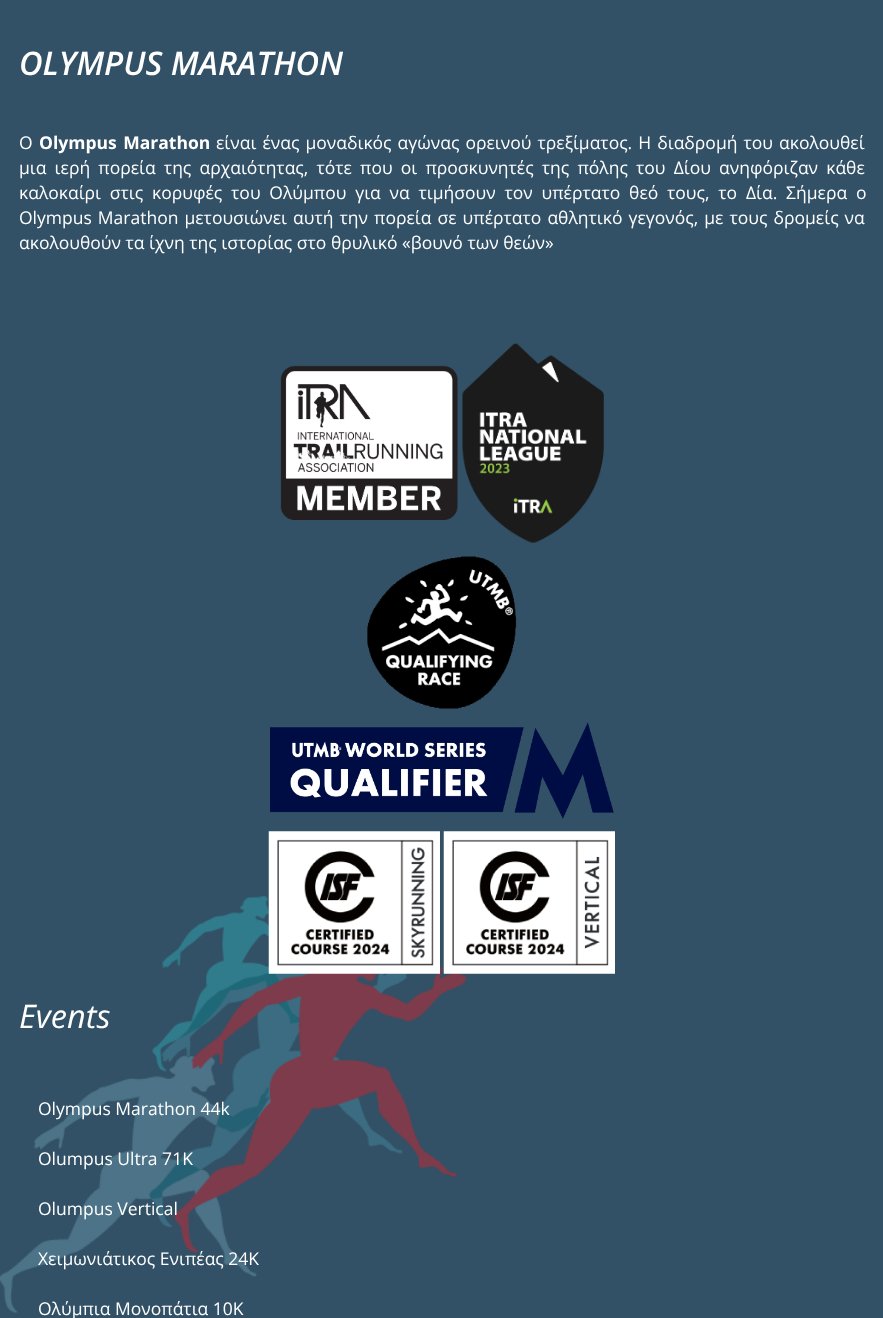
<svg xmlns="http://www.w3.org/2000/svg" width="883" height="1318">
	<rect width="100%" height="100%" fill="#325166" />
	<image x="0" y="896" width="467" height="417" href="assets/img1.png" />
	<text x="19" y="75" font-family="Open Sans" font-size="32.5" font-weight="600" font-style="italic" fill="#FFFFFF">OLYMPUS MARATHON</text>
	<text x="19" y="149" font-family="Open Sans" font-size="17.5" fill="#FFFFFF">Ο</text>
	<text x="39" y="149" word-spacing="2" font-family="Open Sans" font-size="17.5" font-weight="700" fill="#FFFFFF">Olympus Marathon</text>
	<g font-family="Open Sans" font-size="17.5" fill="#FFFFFF">
		<text x="216" y="149" word-spacing="1.5">είναι ένας μοναδικός αγώνας ορεινού τρεξίματος. Η διαδρομή του ακολουθεί</text>
		<text x="19" y="174" word-spacing="3.6">μια ιερή πορεία της αρχαιότητας, τότε που οι προσκυνητές της πόλης του Δίου ανηφόριζαν κάθε</text>
		<text x="19" y="199" word-spacing="4.25">καλοκαίρι στις κορυφές του Ολύμπου για να τιμήσουν τον υπέρτατο θεό τους, το Δία. Σήμερα ο</text>
		<text x="19" y="224" word-spacing="1.5">Olympus Marathon μετουσιώνει αυτή την πορεία σε υπέρτατο αθλητικό γεγονός, με τους δρομείς να</text>
		<text x="19" y="249">ακολουθούν τα ίχνη της ιστορίας στο θρυλικό «βουνό των θεών»</text>
	</g>
	<image x="280" y="365" width="178" height="155" href="assets/img2.png" />
	<image x="462" y="343" width="142" height="200" href="assets/img3.png" />
	<image x="366" y="556" width="151" height="153" href="assets/img4.png" />
	<image x="270" y="722" width="344" height="97" href="assets/img5.png" />
	<image x="268" y="831" width="172" height="143" href="assets/img6.png" />
	<image x="443" y="831" width="172" height="143" href="assets/img7.png" />
	<text x="19" y="1028" font-family="Open Sans" font-size="32.5" font-style="italic" fill="#FFFFFF">Events</text>
	<g font-family="Open Sans" font-size="17.5" fill="#FFFFFF">
		<text x="38" y="1115">Olympus Marathon 44k</text>
		<text x="38" y="1165">Olumpus Ultra 71K</text>
		<text x="38" y="1215">Olumpus Vertical</text>
		<text x="38" y="1265">Χειμωνιάτικος Ενιπέας 24Κ</text>
		<text x="38" y="1315">Ολύμπια Μονοπάτια 10Κ</text>
	</g>
</svg>
